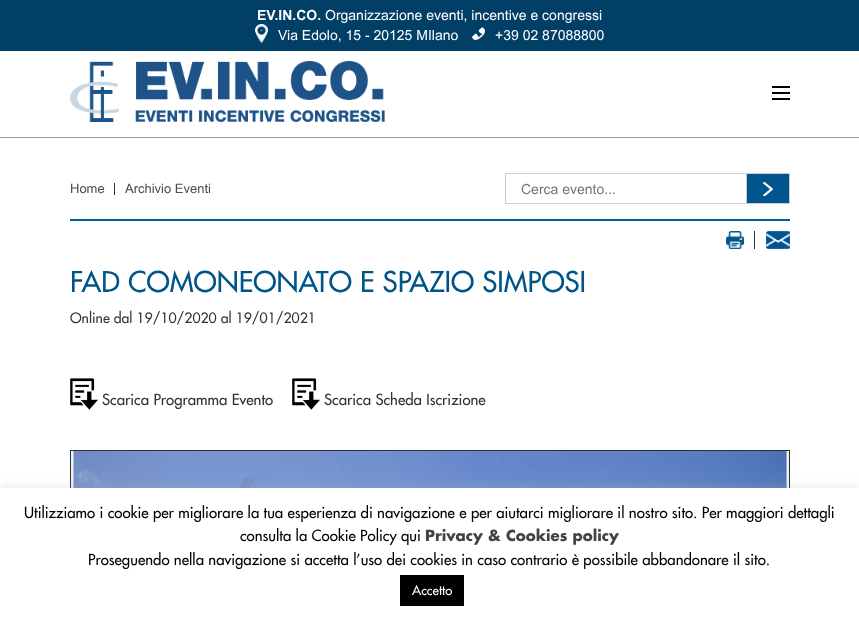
<svg xmlns="http://www.w3.org/2000/svg" width="859" height="618">
	<rect width="100%" height="100%" fill="#FFFFFF" />
	<rect x="0" y="0" width="859" height="51" fill="#023F66" />
	<text x="257" y="20" font-family="Arial" font-size="14" font-weight="700" fill="#FFFFFF">EV.IN.CO.</text>
	<text x="325" y="20" font-family="Arial" font-size="14" fill="#FFFFFF">Organizzazione eventi, incentive e congressi</text>
	<image x="255" y="24" width="13" height="19" href="assets/img1.png" />
	<text x="278" y="40" font-family="Arial" font-size="14" fill="#FFFFFF">Via Edolo, 15 - 20125 MIlano</text>
	<image x="472" y="27" width="13" height="13" href="assets/img2.png" />
	<text x="495" y="40" font-family="Arial" font-size="14" fill="#FFFFFF">+39 02 87088800</text>
	<rect x="0" y="137" width="859" height="1" fill="#9A9A9A" />
	<image x="70" y="61" width="315" height="61" href="assets/img3.png" />
	<rect x="772" y="86" width="18" height="2" fill="#000000" />
	<rect x="772" y="92" width="18" height="2" fill="#000000" />
	<rect x="772" y="98" width="18" height="2" fill="#000000" />
	<rect x="70" y="219" width="720" height="2" fill="#015FA0" />
	<rect x="114" y="183" width="1" height="12" fill="#303030" />
	<g font-family="Arial" font-size="13" fill="#4B4B4B">
		<text x="70" y="193">Home</text>
		<text x="125" y="193">Archivio Eventi</text>
	</g>
	<rect x="505.5" y="173.5" width="284" height="30" fill="none" stroke="#CDCDCD" />
	<text x="521" y="194" font-family="Arial" font-size="14" fill="#757575">Cerca evento...</text>
	<rect x="747" y="174" width="42" height="29" fill="#00558F" />
	<image x="763" y="182" width="10" height="14" href="assets/img4.png" />
	<rect x="746" y="174" width="1" height="29" fill="#CDCDCD" />
	<rect x="754" y="231" width="1" height="18" fill="#303030" />
	<image x="726" y="231" width="18" height="18" href="assets/img5.png" />
	<image x="766" y="231" width="24" height="18" href="assets/img6.png" />
	<text x="70" y="292" font-family="Futura" font-size="28" fill="#015488">FAD COMONEONATO E SPAZIO SIMPOSI</text>
	<text x="70" y="323" font-family="Futura" font-size="14" fill="#333333">Online dal 19/10/2020 al 19/01/2021</text>
	<image x="70" y="378" width="28" height="32" href="assets/img7.png" />
	<text x="102" y="405" font-family="Futura" font-size="15" fill="#333333">Scarica Programma Evento</text>
	<image x="292" y="378" width="28" height="32" href="assets/img8.png" />
	<text x="324" y="405" font-family="Futura" font-size="15" fill="#333333">Scarica Scheda Iscrizione</text>
	<rect x="70.5" y="450.5" width="719" height="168" fill="none" stroke="#303030" />
	<image x="71" y="451" width="718" height="37" href="assets/img9.png" />
	<rect x="0" y="487" width="859" height="130" fill="#ACABAB" fill-opacity="0.3" filter="blur(5px)" />
	<rect x="0" y="488" width="859" height="130" fill="#FFFFFF" />
	<g font-family="Futura" font-size="15" fill="#000000">
		<text x="24" y="518">Utilizziamo i cookie per migliorare la tua esperienza di navigazione e per aiutarci migliorare il nostro sito. Per maggiori dettagli</text>
		<text x="240" y="541">consulta la Cookie Policy qui</text>
	</g>
	<text x="425" y="541" font-family="Futura" font-size="15" font-weight="700" fill="#444444">Privacy &amp; Cookies policy</text>
	<text x="88" y="565" font-family="Futura" font-size="15" fill="#000000">Proseguendo nella navigazione si accetta l’uso dei cookies in caso contrario è possibile abbandonare il sito.</text>
	<rect x="400" y="575" width="64" height="31" fill="#000000" />
	<text x="412" y="595" font-family="Futura" font-size="13" fill="#FFFFFF">Accetto</text>
</svg>
